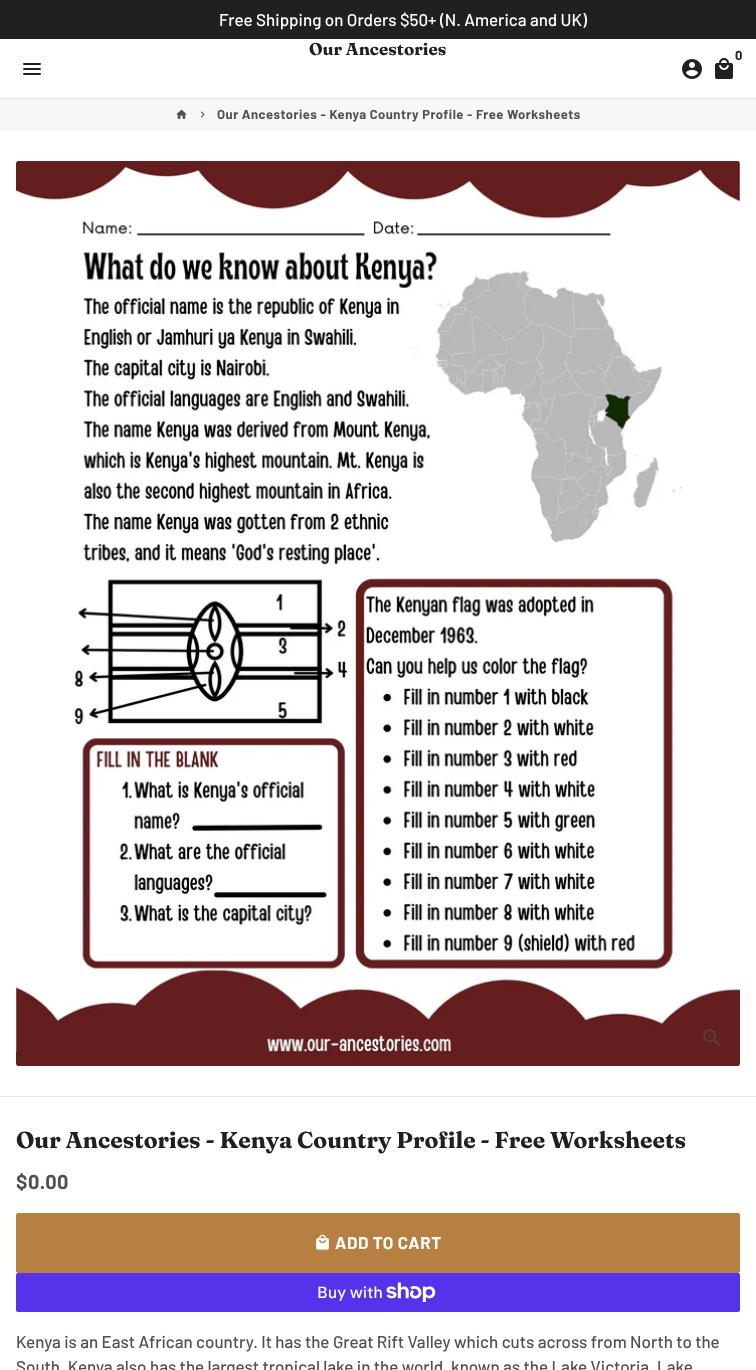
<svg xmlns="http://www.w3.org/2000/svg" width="756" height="1370">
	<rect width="100%" height="100%" fill="#FFFFFF" />
	<rect x="0" y="0" width="756" height="39" fill="#202020" />
	<text x="219" y="26" font-family="Barlow" font-size="17" font-weight="500" fill="#FFFFFF">Free Shipping on Orders $50+ (N. America and UK)</text>
	<rect x="0" y="98" width="756" height="1" fill="#E5E5E5" />
	<text x="309" y="55" font-family="'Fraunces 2'" font-size="17" font-weight="700" fill="#202020">Our Ancestories</text>
	<text x="735" y="60" font-family="Barlow" font-size="13" font-weight="700" fill="#202020">0</text>
	<image x="715" y="58" width="18" height="21" href="assets/img1.png" />
	<image x="682" y="59" width="20" height="20" href="assets/img2.png" />
	<image x="23" y="63" width="18" height="12" href="assets/img3.png" />
	<rect x="0" y="99" width="756" height="32" fill="#F7F7F7" />
	<image x="176" y="109" width="11" height="10" href="assets/img4.png" />
	<image x="201" y="111" width="4" height="7" href="assets/img5.png" />
	<text x="217" y="119" font-family="Barlow" font-size="13" font-weight="700" letter-spacing="0.5" fill="#515151">Our Ancestories - Kenya Country Profile - Free Worksheets</text>
	<image x="16" y="161" width="724" height="905" href="assets/img6.png" />
	<image x="703" y="1029" width="17" height="17" href="assets/img7.png" />
	<rect x="0" y="1096" width="756" height="1" fill="#E5E5E5" />
	<text x="16" y="1148" font-family="Fraunces" font-size="23" font-weight="700" fill="#202020">Our Ancestories - Kenya Country Profile - Free Worksheets</text>
	<text x="16" y="1189" font-family="Barlow" font-size="20" font-weight="700" letter-spacing="0.5" fill="#515151">$0.00</text>
	<rect x="16.5" y="1213.5" width="723" height="59" rx="1.5" fill="#B68042" stroke="#B68042" />
	<image x="316" y="1234" width="13" height="16" href="assets/img8.png" />
	<text x="335" y="1249" font-family="Barlow" font-size="17" font-weight="700" letter-spacing="0.5" fill="#FFFFFF">ADD TO CART</text>
	<rect x="16" y="1273" width="724" height="39" rx="2" fill="#5433EB" />
	<text x="317" y="1298" font-family="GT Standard" font-size="16" font-weight="500" fill="#FFFFFF">Buy with</text>
	<image x="386" y="1282" width="50" height="20" href="assets/img9.png" />
	<g font-family="Barlow" font-size="17" font-weight="500" fill="#515151">
		<text x="16" y="1348">Kenya is an East African country. It has the Great Rift Valley which cuts across from North to the</text>
		<text x="16" y="1373">South. Kenya also has the largest tropical lake in the world, known as the Lake Victoria. Lake</text>
	</g>
</svg>
